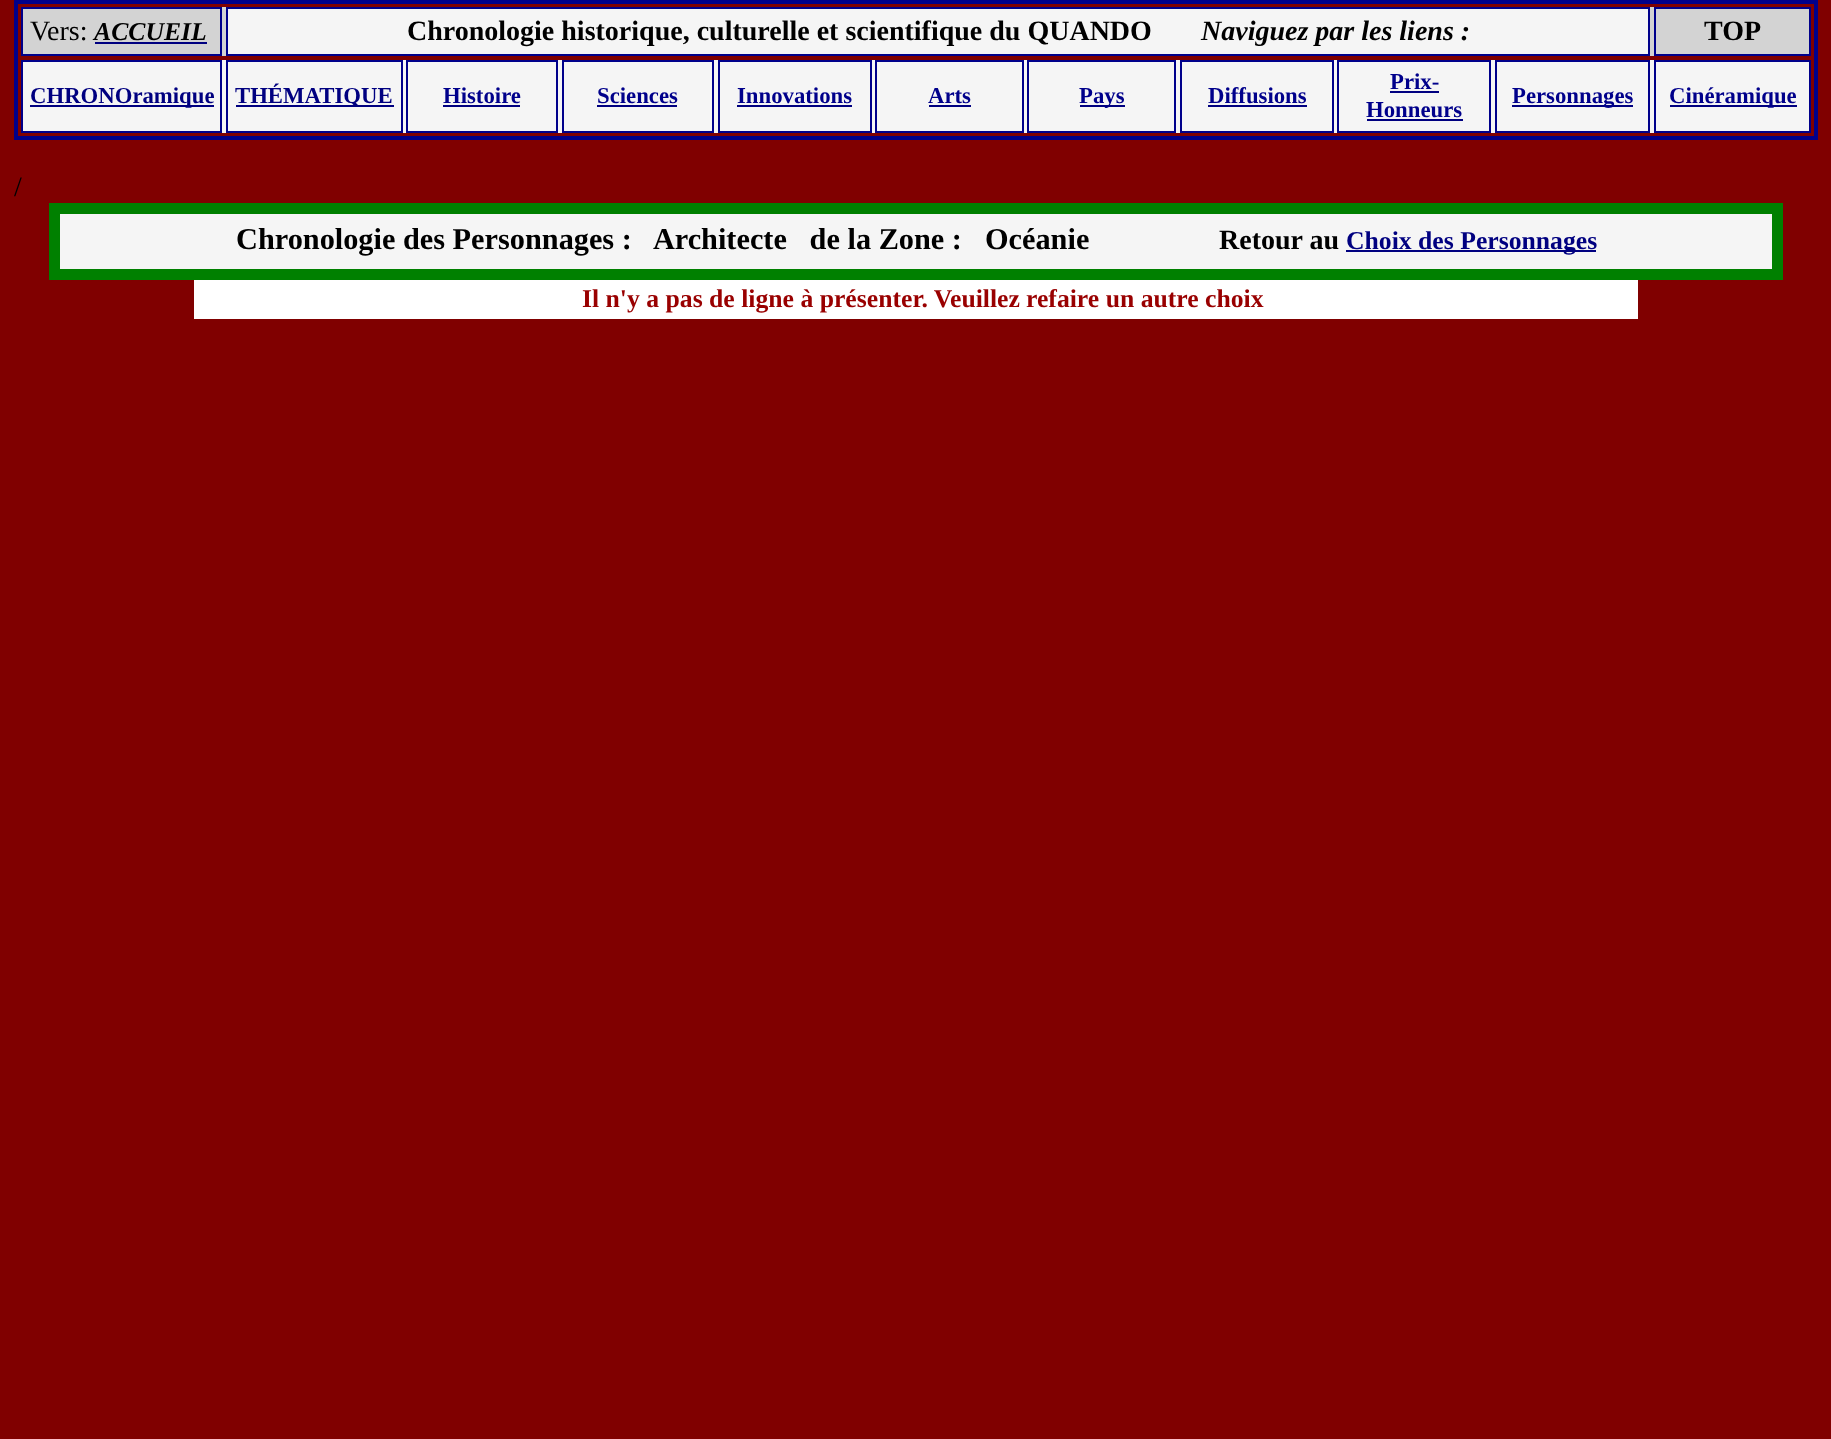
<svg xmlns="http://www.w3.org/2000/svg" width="1831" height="1439">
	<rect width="100%" height="100%" fill="#800000" />
	<rect x="16" y="2" width="1800" height="136" fill="none" stroke="#00008B" stroke-width="4" />
	<rect x="23" y="7" width="1786" height="49" fill="#D3D3D3" />
	<rect x="22" y="8" width="199" height="47" fill="none" stroke="#00008B" stroke-width="2" />
	<text x="30" y="40" font-family="Liberation Serif" font-size="28" fill="#000000">Vers:</text>
	<text x="94" y="40" font-family="Liberation Serif" font-size="25.7" font-weight="700" font-style="italic" fill="#000000">ACCUEIL</text>
	<rect x="95" y="42" width="112" height="2" fill="#000080" />
	<rect x="227" y="8" width="1422" height="47" fill="#F5F5F5" stroke="#00008B" stroke-width="2" />
	<text x="407" y="40" font-family="Liberation Serif" font-size="28" font-weight="700" fill="#000000">Chronologie historique, culturelle et scientifique du QUANDO</text>
	<text x="1201" y="40" font-family="Liberation Serif" font-size="28" font-weight="700" font-style="italic" fill="#000000">Naviguez par les liens :</text>
	<rect x="1655" y="8" width="155" height="47" fill="none" stroke="#00008B" stroke-width="2" />
	<text x="1704" y="40" font-family="Liberation Serif" font-size="28" font-weight="700" fill="#000000">TOP</text>
	<rect x="23" y="60" width="1786" height="73" fill="#F5F5F5" />
	<rect x="22" y="61" width="199" height="71" fill="none" stroke="#00008B" stroke-width="2" />
	<rect x="30" y="105" width="184" height="2" fill="#000080" />
	<text x="30" y="103" font-family="Liberation Serif" font-size="22.75" font-weight="700" fill="#000080">CHRONOramique</text>
	<rect x="227" y="61" width="175" height="71" fill="none" stroke="#00008B" stroke-width="2" />
	<rect x="236" y="105" width="158" height="2" fill="#000080" />
	<text x="235" y="103" font-family="Liberation Serif" font-size="22.75" font-weight="700" fill="#000080">THÉMATIQUE</text>
	<rect x="407" y="61" width="150" height="71" fill="none" stroke="#00008B" stroke-width="2" />
	<text x="443" y="103" font-family="Liberation Serif" font-size="22.75" font-weight="700" fill="#00008B">Histoire</text>
	<rect x="443" y="105" width="77" height="2" fill="#000080" />
	<rect x="563" y="61" width="150" height="71" fill="none" stroke="#00008B" stroke-width="2" />
	<text x="597" y="103" font-family="Liberation Serif" font-size="22.75" font-weight="700" fill="#00008B">Sciences</text>
	<rect x="597" y="105" width="80" height="2" fill="#000080" />
	<rect x="719" y="61" width="152" height="71" fill="none" stroke="#00008B" stroke-width="2" />
	<text x="737" y="103" font-family="Liberation Serif" font-size="22.75" font-weight="700" fill="#00008B">Innovations</text>
	<rect x="737" y="105" width="115" height="2" fill="#000080" />
	<rect x="876" y="61" width="147" height="71" fill="none" stroke="#00008B" stroke-width="2" />
	<text x="928" y="103" font-family="Liberation Serif" font-size="22.75" font-weight="700" fill="#00008B">Arts</text>
	<rect x="929" y="105" width="42" height="2" fill="#000080" />
	<rect x="1028" y="61" width="147" height="71" fill="none" stroke="#00008B" stroke-width="2" />
	<rect x="1080" y="105" width="45" height="2" fill="#000080" />
	<text x="1079" y="103" font-family="Liberation Serif" font-size="22.75" font-weight="700" fill="#00008B">Pays</text>
	<rect x="1181" y="61" width="152" height="71" fill="none" stroke="#00008B" stroke-width="2" />
	<text x="1208" y="103" font-family="Liberation Serif" font-size="22.75" font-weight="700" fill="#00008B">Diffusions</text>
	<rect x="1208" y="105" width="99" height="2" fill="#000080" />
	<rect x="1338" y="61" width="152" height="71" fill="none" stroke="#00008B" stroke-width="2" />
	<text x="1390" y="89" font-family="Liberation Serif" font-size="22.75" font-weight="700" fill="#00008B">Prix-</text>
	<rect x="1390" y="91" width="49" height="2" fill="#000080" />
	<text x="1366" y="117" font-family="Liberation Serif" font-size="22.75" font-weight="700" fill="#00008B">Honneurs</text>
	<rect x="1367" y="119" width="96" height="2" fill="#000080" />
	<rect x="1496" y="61" width="153" height="71" fill="none" stroke="#00008B" stroke-width="2" />
	<rect x="1512" y="105" width="121" height="2" fill="#000080" />
	<text x="1512" y="103" font-family="Liberation Serif" font-size="22.75" font-weight="700" fill="#00008B">Personnages</text>
	<rect x="1655" y="61" width="155" height="71" fill="none" stroke="#00008B" stroke-width="2" />
	<rect x="1670" y="105" width="127" height="2" fill="#000080" />
	<text x="1669" y="103" font-family="Liberation Serif" font-size="22.75" font-weight="700" fill="#00008B">Cinéramique</text>
	<text x="14" y="196" font-family="Liberation Serif" font-size="28" fill="#000000">/</text>
	<rect x="54.5" y="208.5" width="1723" height="66" fill="#F5F5F5" stroke="#008000" stroke-width="11" />
	<g font-family="Liberation Serif" font-size="30.3" font-weight="700" fill="#000000">
		<text x="236" y="249" xml:space="preserve">Chronologie des Personnages :   Architecte   de la Zone :</text>
		<text x="985" y="249">Océanie</text>
	</g>
	<text x="1219" y="249" font-family="Liberation Serif" font-size="28" font-weight="700" fill="#000000">Retour au</text>
	<rect x="1346" y="250" width="250" height="2" fill="#000080" />
	<text x="1346" y="249" font-family="Liberation Serif" font-size="25.7" font-weight="700" fill="#000080">Choix des Personnages</text>
	<rect x="194" y="280" width="1444" height="39" fill="#FFFFFF" />
	<g font-family="Liberation Serif" font-size="25.7" font-weight="700" fill="#990000">
		<text x="582" y="307">Il n'y a pas de ligne à présenter. Veuillez</text>
		<text x="1026" y="307">refaire un autre choix</text>
	</g>
</svg>
